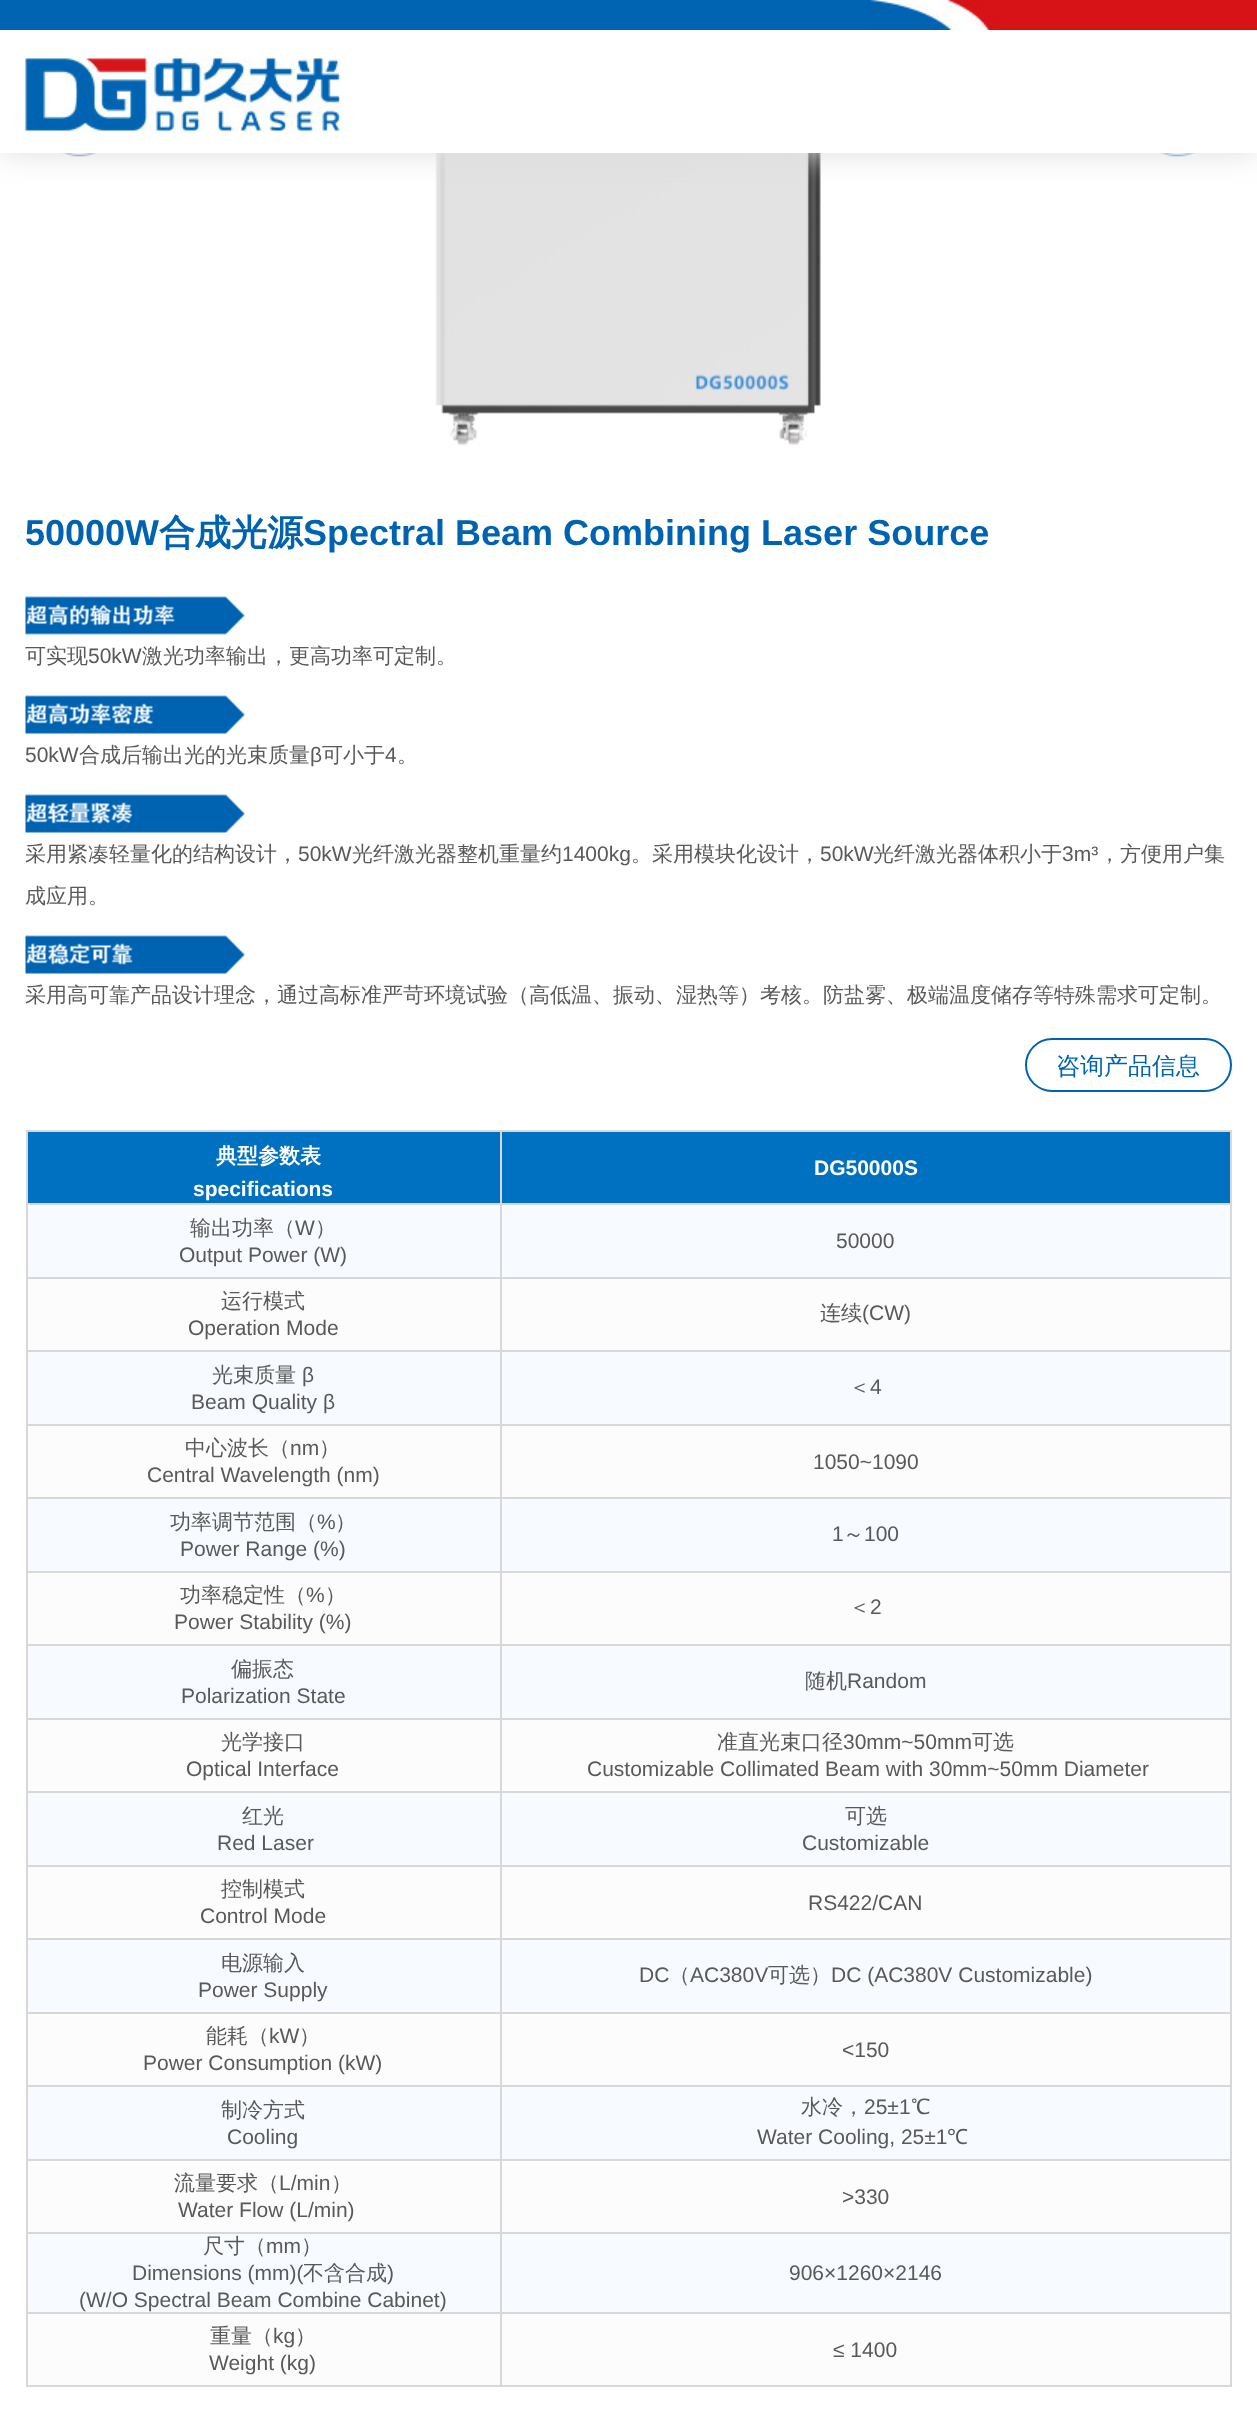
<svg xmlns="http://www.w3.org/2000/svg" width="1257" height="2413">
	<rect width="100%" height="100%" fill="#FFFFFF" />
	<image x="62" y="153" width="35" height="4" href="assets/img3.png" />
	<image x="435" y="153" width="386" height="293" href="assets/img4.png" />
	<image x="1160" y="153" width="35" height="4" href="assets/img5.png" />
	<rect x="0" y="30" width="1257" height="123" fill="#DDDDDD" filter="blur(15px)" />
	<rect x="0" y="30" width="1257" height="123" fill="#FFFFFF" />
	<image x="25" y="57" width="317" height="77" href="assets/img1.png" />
	<rect x="0" y="0" width="868" height="30" fill="#0064B2" />
	<image x="867" y="0" width="390" height="30" href="assets/img2.png" />
	<text x="25" y="545" font-family="Liberation Sans" font-size="36" font-weight="700" fill="#0063B1">50000W</text>
	<text x="159" y="545" font-family="WenQuanYi Zen Hei" font-size="36" font-weight="700" fill="#0063B1">合成光源</text>
	<text x="303" y="545" font-family="Liberation Sans" font-size="36" font-weight="700" fill="#0063B1">Spectral Beam Combining Laser Source</text>
	<image x="25" y="596" width="220" height="39" href="assets/img6.png" />
	<text x="25" y="663" font-family="WenQuanYi Zen Hei" font-size="21" font-weight="500" fill="#595959">可实现</text>
	<text x="88" y="663" font-family="Liberation Sans" font-size="21" fill="#595959">50kW</text>
	<text x="142" y="663" font-family="WenQuanYi Zen Hei" font-size="21" font-weight="500" fill="#595959">激光功率输出，更高功率可定制。</text>
	<image x="25" y="695" width="220" height="39" href="assets/img7.png" />
	<text x="25" y="762" font-family="Liberation Sans" font-size="21" fill="#595959">50kW</text>
	<text x="79" y="762" font-family="WenQuanYi Zen Hei" font-size="21" font-weight="500" fill="#595959">合成后输出光的光束质量</text>
	<text x="310" y="762" font-family="Liberation Sans" font-size="21" fill="#595959">β</text>
	<text x="322" y="762" font-family="WenQuanYi Zen Hei" font-size="21" font-weight="500" fill="#595959">可小于</text>
	<text x="385" y="762" font-family="Liberation Sans" font-size="21" fill="#595959">4</text>
	<text x="397" y="762" font-family="WenQuanYi Zen Hei" font-size="21" font-weight="500" fill="#595959">。</text>
	<image x="25" y="794" width="220" height="39" href="assets/img8.png" />
	<text x="25" y="861" font-family="WenQuanYi Zen Hei" font-size="21" font-weight="500" fill="#595959">采用紧凑轻量化的结构设计，</text>
	<text x="298" y="861" font-family="Liberation Sans" font-size="21" fill="#595959">50kW</text>
	<text x="352" y="861" font-family="WenQuanYi Zen Hei" font-size="21" font-weight="500" fill="#595959">光纤激光器整机重量约</text>
	<text x="562" y="861" font-family="Liberation Sans" font-size="21" fill="#595959">1400kg</text>
	<text x="631" y="861" font-family="WenQuanYi Zen Hei" font-size="21" font-weight="500" fill="#595959">。采用模块化设计，</text>
	<text x="820" y="861" font-family="Liberation Sans" font-size="21" fill="#595959">50kW</text>
	<text x="873" y="861" font-family="WenQuanYi Zen Hei" font-size="21" font-weight="500" fill="#595959">光纤激光器体积小于</text>
	<text x="1062" y="861" font-family="Liberation Sans" font-size="21" fill="#595959">3m³</text>
	<g font-family="WenQuanYi Zen Hei" font-size="21" font-weight="500" fill="#595959">
		<text x="1099" y="861">，方便用户集</text>
		<text x="25" y="903">成应用。</text>
	</g>
	<image x="25" y="935" width="220" height="39" href="assets/img9.png" />
	<text x="25" y="1002" font-family="WenQuanYi Zen Hei" font-size="21" font-weight="500" fill="#595959">采用高可靠产品设计理念，通过高标准严苛环境试验（高低温、振动、湿热等）考核。防盐雾、极端温度储存等特殊需求可定制。</text>
	<rect x="1026" y="1039" width="205" height="52" rx="26" fill="none" stroke="#0063B1" stroke-width="2" />
	<text x="1056" y="1074" font-family="WenQuanYi Zen Hei" font-size="24" font-weight="500" fill="#0063B1">咨询产品信息</text>
	<rect x="28" y="1132" width="472" height="71" fill="#0070C0" />
	<rect x="500" y="1130" width="732" height="2" fill="#D8D8D8" />
	<rect x="500" y="1203" width="732" height="2" fill="#D8D8D8" />
	<rect x="28" y="1205" width="1202" height="72" fill="#F7FAFF" />
	<rect x="500" y="1277" width="732" height="2" fill="#D8D8D8" />
	<rect x="28" y="1279" width="1202" height="71" fill="#FCFCFC" />
	<rect x="500" y="1350" width="732" height="2" fill="#D8D8D8" />
	<rect x="28" y="1352" width="1202" height="72" fill="#F7FAFF" />
	<rect x="500" y="1424" width="732" height="2" fill="#D8D8D8" />
	<rect x="28" y="1426" width="1202" height="71" fill="#FCFCFC" />
	<rect x="500" y="1497" width="732" height="2" fill="#D8D8D8" />
	<rect x="28" y="1499" width="1202" height="72" fill="#F7FAFF" />
	<rect x="500" y="1571" width="732" height="2" fill="#D8D8D8" />
	<rect x="28" y="1573" width="1202" height="71" fill="#FCFCFC" />
	<rect x="500" y="1644" width="732" height="2" fill="#D8D8D8" />
	<rect x="28" y="1646" width="1202" height="72" fill="#F7FAFF" />
	<rect x="500" y="1718" width="732" height="2" fill="#D8D8D8" />
	<rect x="28" y="1720" width="1202" height="71" fill="#FCFCFC" />
	<rect x="500" y="1791" width="732" height="2" fill="#D8D8D8" />
	<rect x="28" y="1793" width="1202" height="72" fill="#F7FAFF" />
	<rect x="500" y="1865" width="732" height="2" fill="#D8D8D8" />
	<rect x="28" y="1867" width="1202" height="71" fill="#FCFCFC" />
	<rect x="500" y="1938" width="732" height="2" fill="#D8D8D8" />
	<rect x="28" y="1940" width="1202" height="72" fill="#F7FAFF" />
	<rect x="500" y="2012" width="732" height="2" fill="#D8D8D8" />
	<rect x="28" y="2014" width="1202" height="71" fill="#FCFCFC" />
	<rect x="500" y="2085" width="732" height="2" fill="#D8D8D8" />
	<rect x="28" y="2087" width="1202" height="72" fill="#F7FAFF" />
	<rect x="500" y="2159" width="732" height="2" fill="#D8D8D8" />
	<rect x="28" y="2161" width="1202" height="71" fill="#FCFCFC" />
	<rect x="500" y="2232" width="732" height="2" fill="#D8D8D8" />
	<rect x="28" y="2234" width="1202" height="78" fill="#F7FAFF" />
	<rect x="500" y="2312" width="732" height="2" fill="#D8D8D8" />
	<rect x="28" y="2314" width="1202" height="71" fill="#FCFCFC" />
	<rect x="1230" y="2312" width="2" height="75" fill="#D8D8D8" />
	<rect x="500" y="2385" width="732" height="2" fill="#D8D8D8" />
	<rect x="500" y="2312" width="2" height="75" fill="#D8D8D8" />
	<rect x="26" y="2312" width="475" height="2" fill="#D8D8D8" />
	<rect x="500" y="2232" width="2" height="81" fill="#D8D8D8" />
	<rect x="26" y="2232" width="475" height="2" fill="#D8D8D8" />
	<rect x="500" y="2159" width="2" height="75" fill="#D8D8D8" />
	<rect x="26" y="2159" width="475" height="2" fill="#D8D8D8" />
	<rect x="500" y="2085" width="2" height="75" fill="#D8D8D8" />
	<rect x="26" y="2085" width="475" height="2" fill="#D8D8D8" />
	<rect x="500" y="2012" width="2" height="75" fill="#D8D8D8" />
	<rect x="26" y="2012" width="475" height="2" fill="#D8D8D8" />
	<rect x="500" y="1938" width="2" height="75" fill="#D8D8D8" />
	<rect x="26" y="1938" width="475" height="2" fill="#D8D8D8" />
	<rect x="500" y="1865" width="2" height="75" fill="#D8D8D8" />
	<rect x="26" y="1865" width="475" height="2" fill="#D8D8D8" />
	<rect x="500" y="1791" width="2" height="75" fill="#D8D8D8" />
	<rect x="26" y="1791" width="475" height="2" fill="#D8D8D8" />
	<rect x="500" y="1718" width="2" height="75" fill="#D8D8D8" />
	<rect x="26" y="1718" width="475" height="2" fill="#D8D8D8" />
	<rect x="500" y="1644" width="2" height="75" fill="#D8D8D8" />
	<rect x="26" y="1644" width="475" height="2" fill="#D8D8D8" />
	<rect x="500" y="1571" width="2" height="75" fill="#D8D8D8" />
	<rect x="26" y="1571" width="475" height="2" fill="#D8D8D8" />
	<rect x="500" y="1497" width="2" height="75" fill="#D8D8D8" />
	<rect x="26" y="1497" width="475" height="2" fill="#D8D8D8" />
	<rect x="500" y="1424" width="2" height="75" fill="#D8D8D8" />
	<rect x="26" y="1424" width="475" height="2" fill="#D8D8D8" />
	<rect x="500" y="1350" width="2" height="75" fill="#D8D8D8" />
	<rect x="26" y="1350" width="475" height="2" fill="#D8D8D8" />
	<rect x="500" y="1277" width="2" height="75" fill="#D8D8D8" />
	<rect x="26" y="1277" width="475" height="2" fill="#D8D8D8" />
	<rect x="500" y="1203" width="2" height="75" fill="#D8D8D8" />
	<rect x="26" y="1203" width="475" height="2" fill="#D8D8D8" />
	<rect x="500" y="1130" width="2" height="75" fill="#D8D8D8" />
	<rect x="26" y="1130" width="475" height="2" fill="#D8D8D8" />
	<rect x="26" y="2385" width="475" height="2" fill="#D8D8D8" />
	<rect x="26" y="2312" width="2" height="75" fill="#D8D8D8" />
	<rect x="26" y="2232" width="2" height="81" fill="#D8D8D8" />
	<rect x="26" y="2159" width="2" height="75" fill="#D8D8D8" />
	<rect x="26" y="2085" width="2" height="75" fill="#D8D8D8" />
	<rect x="26" y="2012" width="2" height="75" fill="#D8D8D8" />
	<rect x="26" y="1938" width="2" height="75" fill="#D8D8D8" />
	<rect x="26" y="1865" width="2" height="75" fill="#D8D8D8" />
	<rect x="26" y="1791" width="2" height="75" fill="#D8D8D8" />
	<rect x="26" y="1718" width="2" height="75" fill="#D8D8D8" />
	<rect x="26" y="1644" width="2" height="75" fill="#D8D8D8" />
	<rect x="26" y="1571" width="2" height="75" fill="#D8D8D8" />
	<rect x="26" y="1497" width="2" height="75" fill="#D8D8D8" />
	<rect x="26" y="1424" width="2" height="75" fill="#D8D8D8" />
	<rect x="26" y="1350" width="2" height="75" fill="#D8D8D8" />
	<rect x="26" y="1277" width="2" height="75" fill="#D8D8D8" />
	<rect x="26" y="1203" width="2" height="75" fill="#D8D8D8" />
	<rect x="26" y="1130" width="2" height="75" fill="#D8D8D8" />
	<text x="216" y="1163" font-family="WenQuanYi Zen Hei" font-size="21" font-weight="700" fill="#FFFFFF">典型参数表</text>
	<text x="193" y="1196" font-family="Liberation Sans" font-size="21" font-weight="700" fill="#FFFFFF">specifications</text>
	<rect x="502" y="1132" width="728" height="71" fill="#0070C0" />
	<rect x="1230" y="2232" width="2" height="81" fill="#D8D8D8" />
	<rect x="1230" y="2159" width="2" height="75" fill="#D8D8D8" />
	<rect x="1230" y="2085" width="2" height="75" fill="#D8D8D8" />
	<rect x="1230" y="2012" width="2" height="75" fill="#D8D8D8" />
	<rect x="1230" y="1938" width="2" height="75" fill="#D8D8D8" />
	<rect x="1230" y="1865" width="2" height="75" fill="#D8D8D8" />
	<rect x="1230" y="1791" width="2" height="75" fill="#D8D8D8" />
	<rect x="1230" y="1718" width="2" height="75" fill="#D8D8D8" />
	<rect x="1230" y="1644" width="2" height="75" fill="#D8D8D8" />
	<rect x="1230" y="1571" width="2" height="75" fill="#D8D8D8" />
	<rect x="1230" y="1497" width="2" height="75" fill="#D8D8D8" />
	<rect x="1230" y="1424" width="2" height="75" fill="#D8D8D8" />
	<rect x="1230" y="1350" width="2" height="75" fill="#D8D8D8" />
	<rect x="1230" y="1277" width="2" height="75" fill="#D8D8D8" />
	<rect x="1230" y="1203" width="2" height="75" fill="#D8D8D8" />
	<rect x="1230" y="1130" width="2" height="75" fill="#D8D8D8" />
	<text x="814" y="1175" font-family="Liberation Sans" font-size="21" font-weight="700" fill="#FFFFFF">DG50000S</text>
	<text x="190" y="1235" font-family="WenQuanYi Zen Hei" font-size="21" font-weight="500" fill="#595959">输出功率（</text>
	<text x="295" y="1235" font-family="Liberation Sans" font-size="21" fill="#595959">W</text>
	<text x="315" y="1235" font-family="WenQuanYi Zen Hei" font-size="21" font-weight="500" fill="#595959">）</text>
	<g font-family="Liberation Sans" font-size="21" fill="#595959">
		<text x="179" y="1262">Output Power (W)</text>
		<text x="836" y="1248">50000</text>
	</g>
	<text x="221" y="1308" font-family="WenQuanYi Zen Hei" font-size="21" font-weight="500" fill="#595959">运行模式</text>
	<text x="188" y="1335" font-family="Liberation Sans" font-size="21" fill="#595959">Operation Mode</text>
	<text x="820" y="1320" font-family="WenQuanYi Zen Hei" font-size="21" font-weight="500" fill="#595959">连续</text>
	<text x="862" y="1320" font-family="Liberation Sans" font-size="21" fill="#595959">(CW)</text>
	<text x="212" y="1382" font-family="WenQuanYi Zen Hei" font-size="21" font-weight="500" fill="#595959">光束质量</text>
	<g font-family="Liberation Sans" font-size="21" fill="#595959">
		<text x="302" y="1382">β</text>
		<text x="191" y="1409">Beam Quality β</text>
	</g>
	<text x="849" y="1394" font-family="WenQuanYi Zen Hei" font-size="21" font-weight="500" fill="#595959">＜</text>
	<text x="870" y="1394" font-family="Liberation Sans" font-size="21" fill="#595959">4</text>
	<text x="185" y="1455" font-family="WenQuanYi Zen Hei" font-size="21" font-weight="500" fill="#595959">中心波长（</text>
	<text x="290" y="1455" font-family="Liberation Sans" font-size="21" fill="#595959">nm</text>
	<text x="319" y="1455" font-family="WenQuanYi Zen Hei" font-size="21" font-weight="500" fill="#595959">）</text>
	<g font-family="Liberation Sans" font-size="21" fill="#595959">
		<text x="147" y="1482">Central Wavelength (nm)</text>
		<text x="813" y="1469">1050~1090</text>
	</g>
	<text x="170" y="1529" font-family="WenQuanYi Zen Hei" font-size="21" font-weight="500" fill="#595959">功率调节范围（</text>
	<text x="317" y="1529" font-family="Liberation Sans" font-size="21" fill="#595959">%</text>
	<text x="335" y="1529" font-family="WenQuanYi Zen Hei" font-size="21" font-weight="500" fill="#595959">）</text>
	<g font-family="Liberation Sans" font-size="21" fill="#595959">
		<text x="180" y="1556">Power Range (%)</text>
		<text x="832" y="1541">1</text>
	</g>
	<text x="843" y="1541" font-family="WenQuanYi Zen Hei" font-size="21" font-weight="500" fill="#595959">～</text>
	<text x="864" y="1541" font-family="Liberation Sans" font-size="21" fill="#595959">100</text>
	<text x="180" y="1602" font-family="WenQuanYi Zen Hei" font-size="21" font-weight="500" fill="#595959">功率稳定性（</text>
	<text x="306" y="1602" font-family="Liberation Sans" font-size="21" fill="#595959">%</text>
	<text x="325" y="1602" font-family="WenQuanYi Zen Hei" font-size="21" font-weight="500" fill="#595959">）</text>
	<text x="174" y="1629" font-family="Liberation Sans" font-size="21" fill="#595959">Power Stability (%)</text>
	<text x="849" y="1614" font-family="WenQuanYi Zen Hei" font-size="21" font-weight="500" fill="#595959">＜</text>
	<text x="870" y="1614" font-family="Liberation Sans" font-size="21" fill="#595959">2</text>
	<text x="231" y="1676" font-family="WenQuanYi Zen Hei" font-size="21" font-weight="500" fill="#595959">偏振态</text>
	<text x="181" y="1703" font-family="Liberation Sans" font-size="21" fill="#595959">Polarization State</text>
	<text x="805" y="1688" font-family="WenQuanYi Zen Hei" font-size="21" font-weight="500" fill="#595959">随机</text>
	<text x="847" y="1688" font-family="Liberation Sans" font-size="21" fill="#595959">Random</text>
	<text x="221" y="1749" font-family="WenQuanYi Zen Hei" font-size="21" font-weight="500" fill="#595959">光学接口</text>
	<text x="186" y="1776" font-family="Liberation Sans" font-size="21" fill="#595959">Optical Interface</text>
	<text x="717" y="1749" font-family="WenQuanYi Zen Hei" font-size="21" font-weight="500" fill="#595959">准直光束口径</text>
	<text x="843" y="1749" font-family="Liberation Sans" font-size="21" fill="#595959">30mm~50mm</text>
	<text x="972" y="1749" font-family="WenQuanYi Zen Hei" font-size="21" font-weight="500" fill="#595959">可选</text>
	<text x="587" y="1776" font-family="Liberation Sans" font-size="21" fill="#595959">Customizable Collimated Beam with 30mm~50mm Diameter</text>
	<text x="242" y="1823" font-family="WenQuanYi Zen Hei" font-size="21" font-weight="500" fill="#595959">红光</text>
	<text x="217" y="1850" font-family="Liberation Sans" font-size="21" fill="#595959">Red Laser</text>
	<text x="845" y="1823" font-family="WenQuanYi Zen Hei" font-size="21" font-weight="500" fill="#595959">可选</text>
	<text x="802" y="1850" font-family="Liberation Sans" font-size="21" fill="#595959">Customizable</text>
	<text x="221" y="1896" font-family="WenQuanYi Zen Hei" font-size="21" font-weight="500" fill="#595959">控制模式</text>
	<g font-family="Liberation Sans" font-size="21" fill="#595959">
		<text x="200" y="1923">Control Mode</text>
		<text x="808" y="1910">RS422/CAN</text>
	</g>
	<text x="221" y="1970" font-family="WenQuanYi Zen Hei" font-size="21" font-weight="500" fill="#595959">电源输入</text>
	<g font-family="Liberation Sans" font-size="21" fill="#595959">
		<text x="198" y="1997">Power Supply</text>
		<text x="639" y="1982">DC</text>
	</g>
	<text x="669" y="1982" font-family="WenQuanYi Zen Hei" font-size="21" font-weight="500" fill="#595959">（</text>
	<text x="690" y="1982" font-family="Liberation Sans" font-size="21" fill="#595959">AC380V</text>
	<text x="768" y="1982" font-family="WenQuanYi Zen Hei" font-size="21" font-weight="500" fill="#595959">可选）</text>
	<text x="831" y="1982" font-family="Liberation Sans" font-size="21" fill="#595959">DC (AC380V Customizable)</text>
	<text x="206" y="2043" font-family="WenQuanYi Zen Hei" font-size="21" font-weight="500" fill="#595959">能耗（</text>
	<text x="269" y="2043" font-family="Liberation Sans" font-size="21" fill="#595959">kW</text>
	<text x="299" y="2043" font-family="WenQuanYi Zen Hei" font-size="21" font-weight="500" fill="#595959">）</text>
	<g font-family="Liberation Sans" font-size="21" fill="#595959">
		<text x="143" y="2070">Power Consumption (kW)</text>
		<text x="842" y="2057">&lt;150</text>
	</g>
	<text x="221" y="2117" font-family="WenQuanYi Zen Hei" font-size="21" font-weight="500" fill="#595959">制冷方式</text>
	<text x="227" y="2144" font-family="Liberation Sans" font-size="21" fill="#595959">Cooling</text>
	<text x="801" y="2114" font-family="WenQuanYi Zen Hei" font-size="21" font-weight="500" fill="#595959">水冷，</text>
	<text x="864" y="2114" font-family="Liberation Sans" font-size="21" fill="#595959">25±1</text>
	<text x="911" y="2114" font-family="WenQuanYi Zen Hei" font-size="21" font-weight="500" fill="#595959">℃</text>
	<text x="757" y="2144" font-family="Liberation Sans" font-size="21" fill="#595959">Water Cooling, 25±1</text>
	<text x="947" y="2144" font-family="Noto Sans" font-size="21" fill="#595959">℃</text>
	<text x="174" y="2190" font-family="WenQuanYi Zen Hei" font-size="21" font-weight="500" fill="#595959">流量要求（</text>
	<text x="279" y="2190" font-family="Liberation Sans" font-size="21" fill="#595959">L/min</text>
	<text x="331" y="2190" font-family="WenQuanYi Zen Hei" font-size="21" font-weight="500" fill="#595959">）</text>
	<g font-family="Liberation Sans" font-size="21" fill="#595959">
		<text x="178" y="2217">Water Flow (L/min)</text>
		<text x="842" y="2204">&gt;330</text>
	</g>
	<text x="203" y="2253" font-family="WenQuanYi Zen Hei" font-size="21" font-weight="500" fill="#595959">尺寸（</text>
	<text x="266" y="2253" font-family="Liberation Sans" font-size="21" fill="#595959">mm</text>
	<text x="301" y="2253" font-family="WenQuanYi Zen Hei" font-size="21" font-weight="500" fill="#595959">）</text>
	<text x="132" y="2280" font-family="Liberation Sans" font-size="21" fill="#595959">Dimensions (mm)(</text>
	<text x="303" y="2280" font-family="WenQuanYi Zen Hei" font-size="21" font-weight="500" fill="#595959">不含合成</text>
	<g font-family="Liberation Sans" font-size="21" fill="#595959">
		<text x="387" y="2280">)</text>
		<text x="79" y="2307">(W/O Spectral Beam Combine Cabinet)</text>
		<text x="789" y="2280">906×1260×2146</text>
	</g>
	<text x="210" y="2343" font-family="WenQuanYi Zen Hei" font-size="21" font-weight="500" fill="#595959">重量（</text>
	<text x="273" y="2343" font-family="Liberation Sans" font-size="21" fill="#595959">kg</text>
	<text x="295" y="2343" font-family="WenQuanYi Zen Hei" font-size="21" font-weight="500" fill="#595959">）</text>
	<g font-family="Liberation Sans" font-size="21" fill="#595959">
		<text x="209" y="2370">Weight (kg)</text>
		<text x="833" y="2357">≤ 1400</text>
	</g>
</svg>
